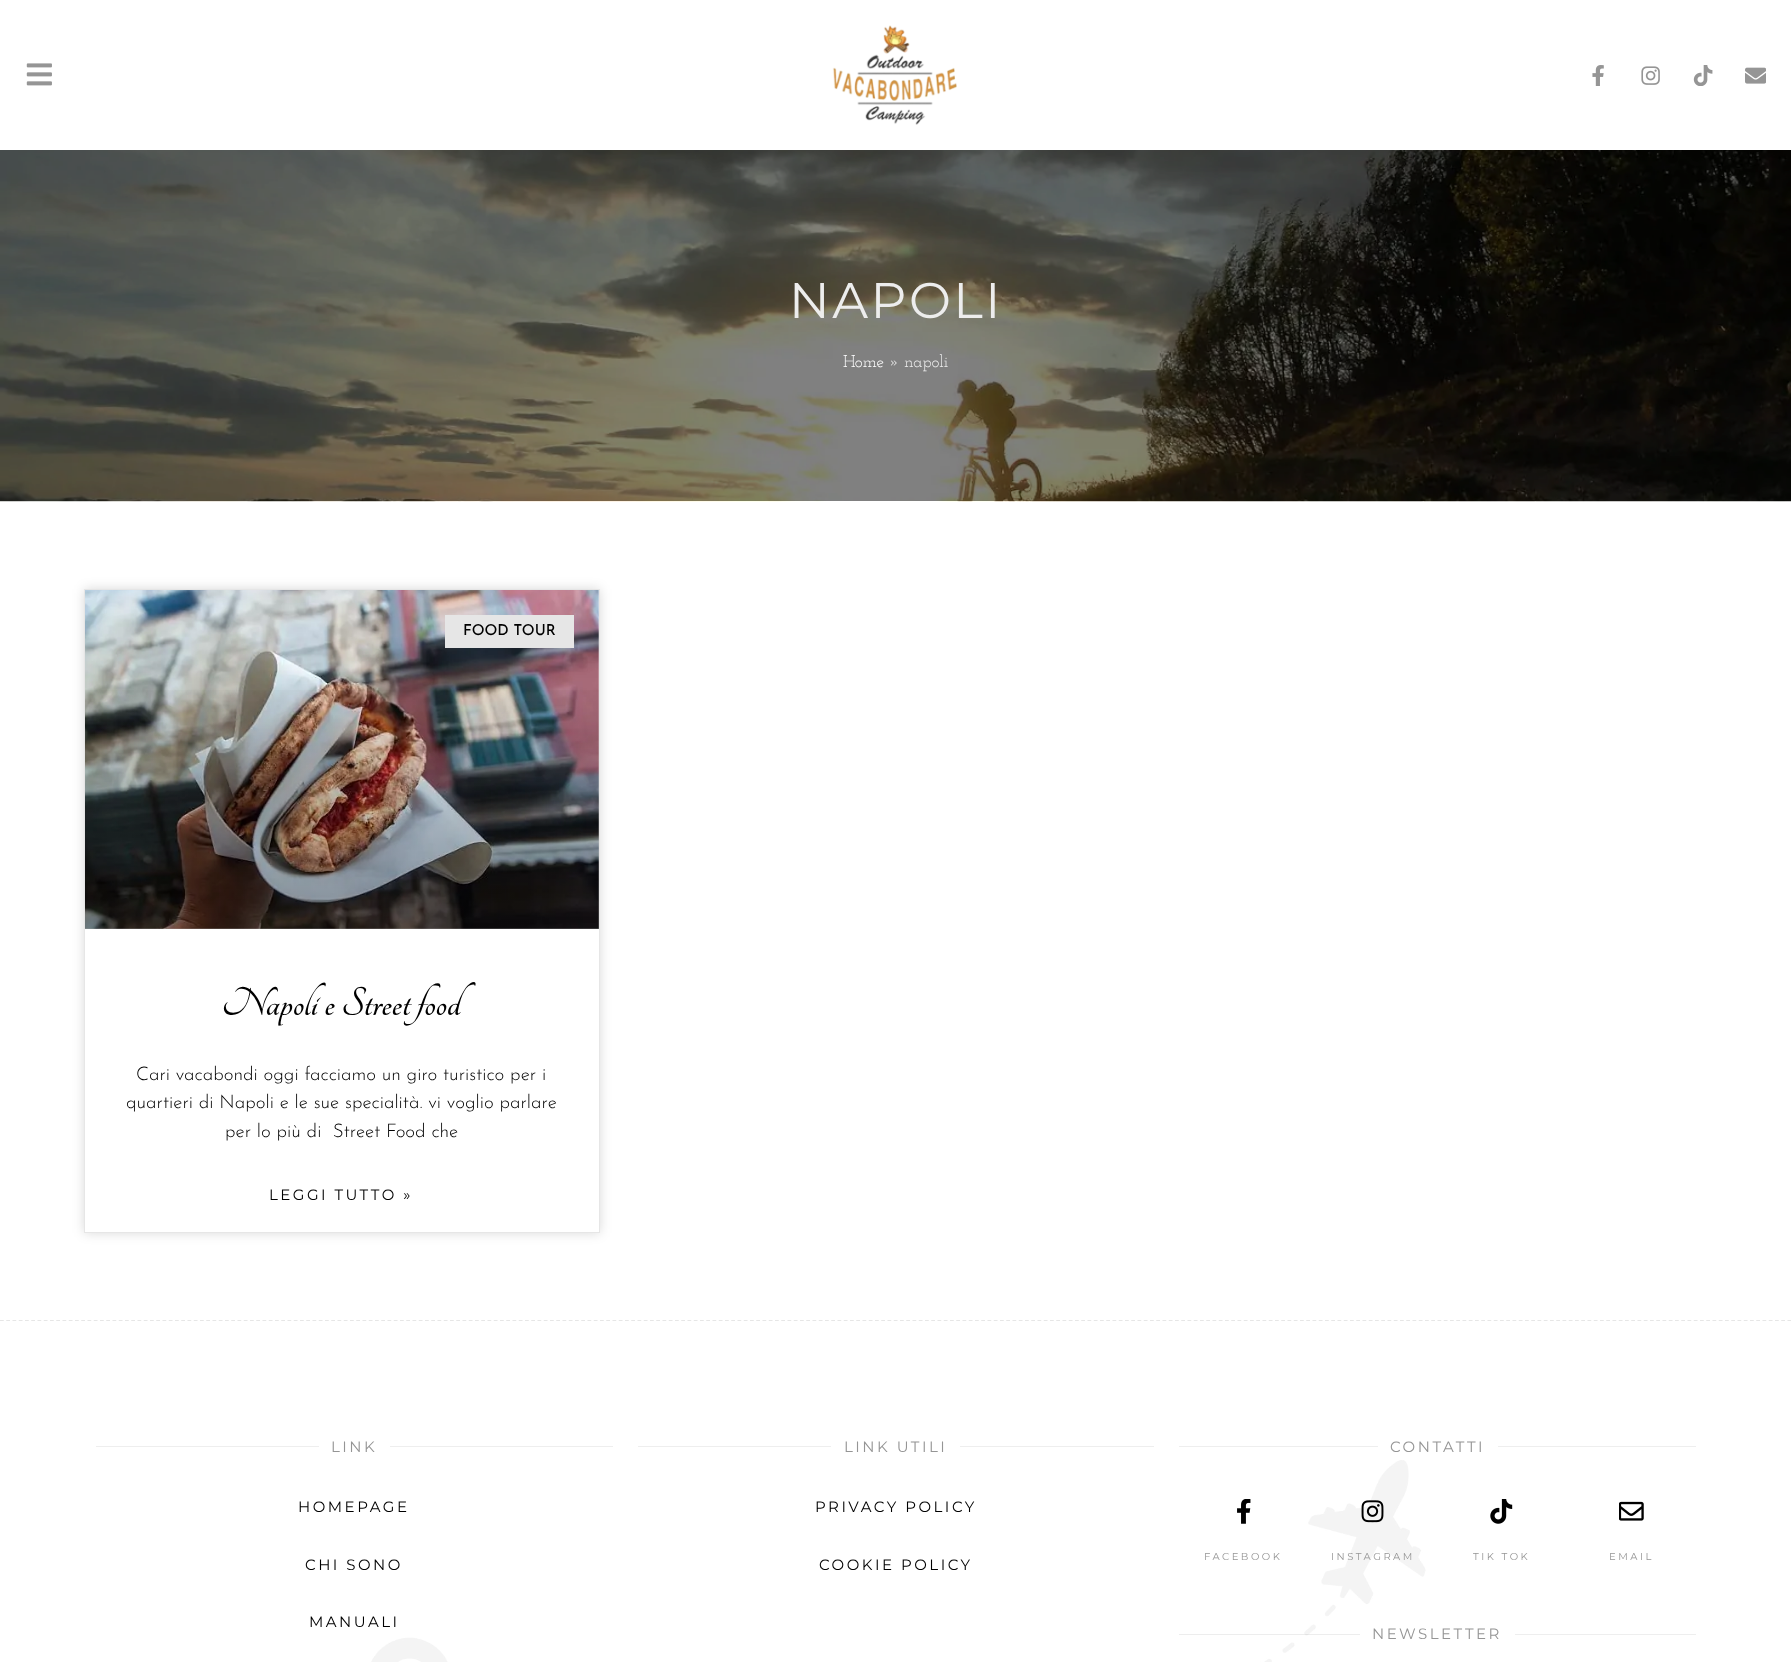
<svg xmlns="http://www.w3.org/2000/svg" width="1791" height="1662">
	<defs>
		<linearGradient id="g1" gradientUnits="userSpaceOnUse" x1="342" y1="929" x2="342" y2="590"><stop offset="0" stop-color="#000000" stop-opacity="0.35" /><stop offset="0.75" stop-color="#000000" stop-opacity="0" /></linearGradient>
	</defs>
	<rect width="100%" height="100%" fill="#FFFFFF" />
	<image x="26" y="63" width="26" height="23" href="assets/img1.png" />
	<image x="832" y="25" width="125" height="100" href="assets/img2.png" />
	<image x="1592" y="65" width="12" height="21" href="assets/img3.png" />
	<image x="1641" y="66" width="19" height="19" href="assets/img4.png" />
	<image x="1693" y="65" width="20" height="21" href="assets/img5.png" />
	<image x="1745" y="67" width="21" height="17" href="assets/img6.png" />
	<image x="0" y="150" width="1791" height="352" href="assets/img7.png" />
	<text x="789" y="318" font-family="Montserrat" font-size="50" letter-spacing="2.5" fill="#EDEDED">NAPOLI</text>
	<text x="843" y="367" font-family="Josefin Slab" font-size="17" fill="#FFFFFF">Home</text>
	<text x="889" y="367" font-family="Josefin Slab" font-size="17" fill="#EDEDED">» napoli</text>
	<rect x="84" y="589" width="516" height="644" fill="#000000" fill-opacity="0.15" filter="blur(6px)" />
	<rect x="84.5" y="589.5" width="515" height="643" fill="#FFFFFF" stroke="#E6E6E6" />
	<image x="85" y="590" width="514" height="339" href="assets/img8.png" />
	<rect x="85" y="690" width="514" height="239" fill="url(#g1)" />
	<rect x="445" y="615" width="129" height="33" fill="#E6E6E6" />
	<text x="463" y="635" font-family="Josefin Sans" font-size="15" font-weight="500" fill="#000000">FOOD TOUR</text>
	<text x="222" y="1015" font-family="Tangerine" font-size="43.75" font-weight="700" fill="#000000">Napoli e Street food</text>
	<g font-family="Josefin Sans" font-size="18.75" font-weight="300" fill="#000000">
		<text x="136" y="1080">Cari vacabondi oggi facciamo un giro turistico per i</text>
		<text x="126" y="1108">quartieri di Napoli e le sue specialità. vi voglio parlare</text>
		<text x="225" y="1137" xml:space="preserve">per lo più di  Street Food che</text>
	</g>
	<text x="269" y="1200" font-family="Montserrat" font-size="15" letter-spacing="2.5" fill="#000000">LEGGI TUTTO »</text>
	<path d="M0 1320.5H1791" fill="none" stroke="#E6E6E6" stroke-width="1.2" stroke-dasharray="3.75 2.5" />
	<rect x="96" y="1446" width="223" height="1" fill="#EEEEEE" />
	<text x="331" y="1452" font-family="Montserrat" font-size="15" letter-spacing="2.5" fill="#959595">LINK</text>
	<rect x="390" y="1446" width="223" height="1" fill="#EEEEEE" />
	<image x="371" y="1460" width="1055" height="202" href="assets/img13.png" />
	<g font-family="Montserrat" font-size="15" letter-spacing="2.5" fill="#000000">
		<text x="298" y="1512">HOMEPAGE</text>
		<text x="305" y="1570">CHI SONO</text>
		<text x="309" y="1627">MANUALI</text>
	</g>
	<rect x="638" y="1446" width="193" height="1" fill="#EEEEEE" />
	<text x="844" y="1452" font-family="Montserrat" font-size="15" letter-spacing="2.5" fill="#959595">LINK UTILI</text>
	<rect x="960" y="1446" width="194" height="1" fill="#EEEEEE" />
	<g font-family="Montserrat" font-size="15" letter-spacing="2.5" fill="#000000">
		<text x="815" y="1512">PRIVACY POLICY</text>
		<text x="819" y="1570">COOKIE POLICY</text>
	</g>
	<rect x="1179" y="1446" width="199" height="1" fill="#EEEEEE" />
	<text x="1390" y="1452" font-family="Montserrat" font-size="15" letter-spacing="2.5" fill="#959595">CONTATTI</text>
	<rect x="1498" y="1446" width="198" height="1" fill="#EEEEEE" />
	<image x="1237" y="1499" width="14" height="25" href="assets/img9.png" />
	<text x="1204" y="1560" font-family="Montserrat" font-size="10" letter-spacing="2.5" fill="#959595">FACEBOOK</text>
	<image x="1361" y="1500" width="23" height="23" href="assets/img10.png" />
	<text x="1331" y="1560" font-family="Montserrat" font-size="10" letter-spacing="2.5" fill="#959595">INSTAGRAM</text>
	<image x="1490" y="1499" width="23" height="25" href="assets/img11.png" />
	<text x="1473" y="1560" font-family="Montserrat" font-size="10" letter-spacing="2.5" fill="#959595">TIK TOK</text>
	<image x="1619" y="1501" width="25" height="20" href="assets/img12.png" />
	<text x="1609" y="1560" font-family="Montserrat" font-size="10" letter-spacing="2.5" fill="#959595">EMAIL</text>
	<rect x="1179" y="1634" width="181" height="1" fill="#838383" fill-opacity="0.14" />
	<text x="1372" y="1639" font-family="Montserrat" font-size="15" letter-spacing="2.5" fill="#959595">NEWSLETTER</text>
	<rect x="1515" y="1634" width="181" height="1" fill="#EEEEEE" />
</svg>
